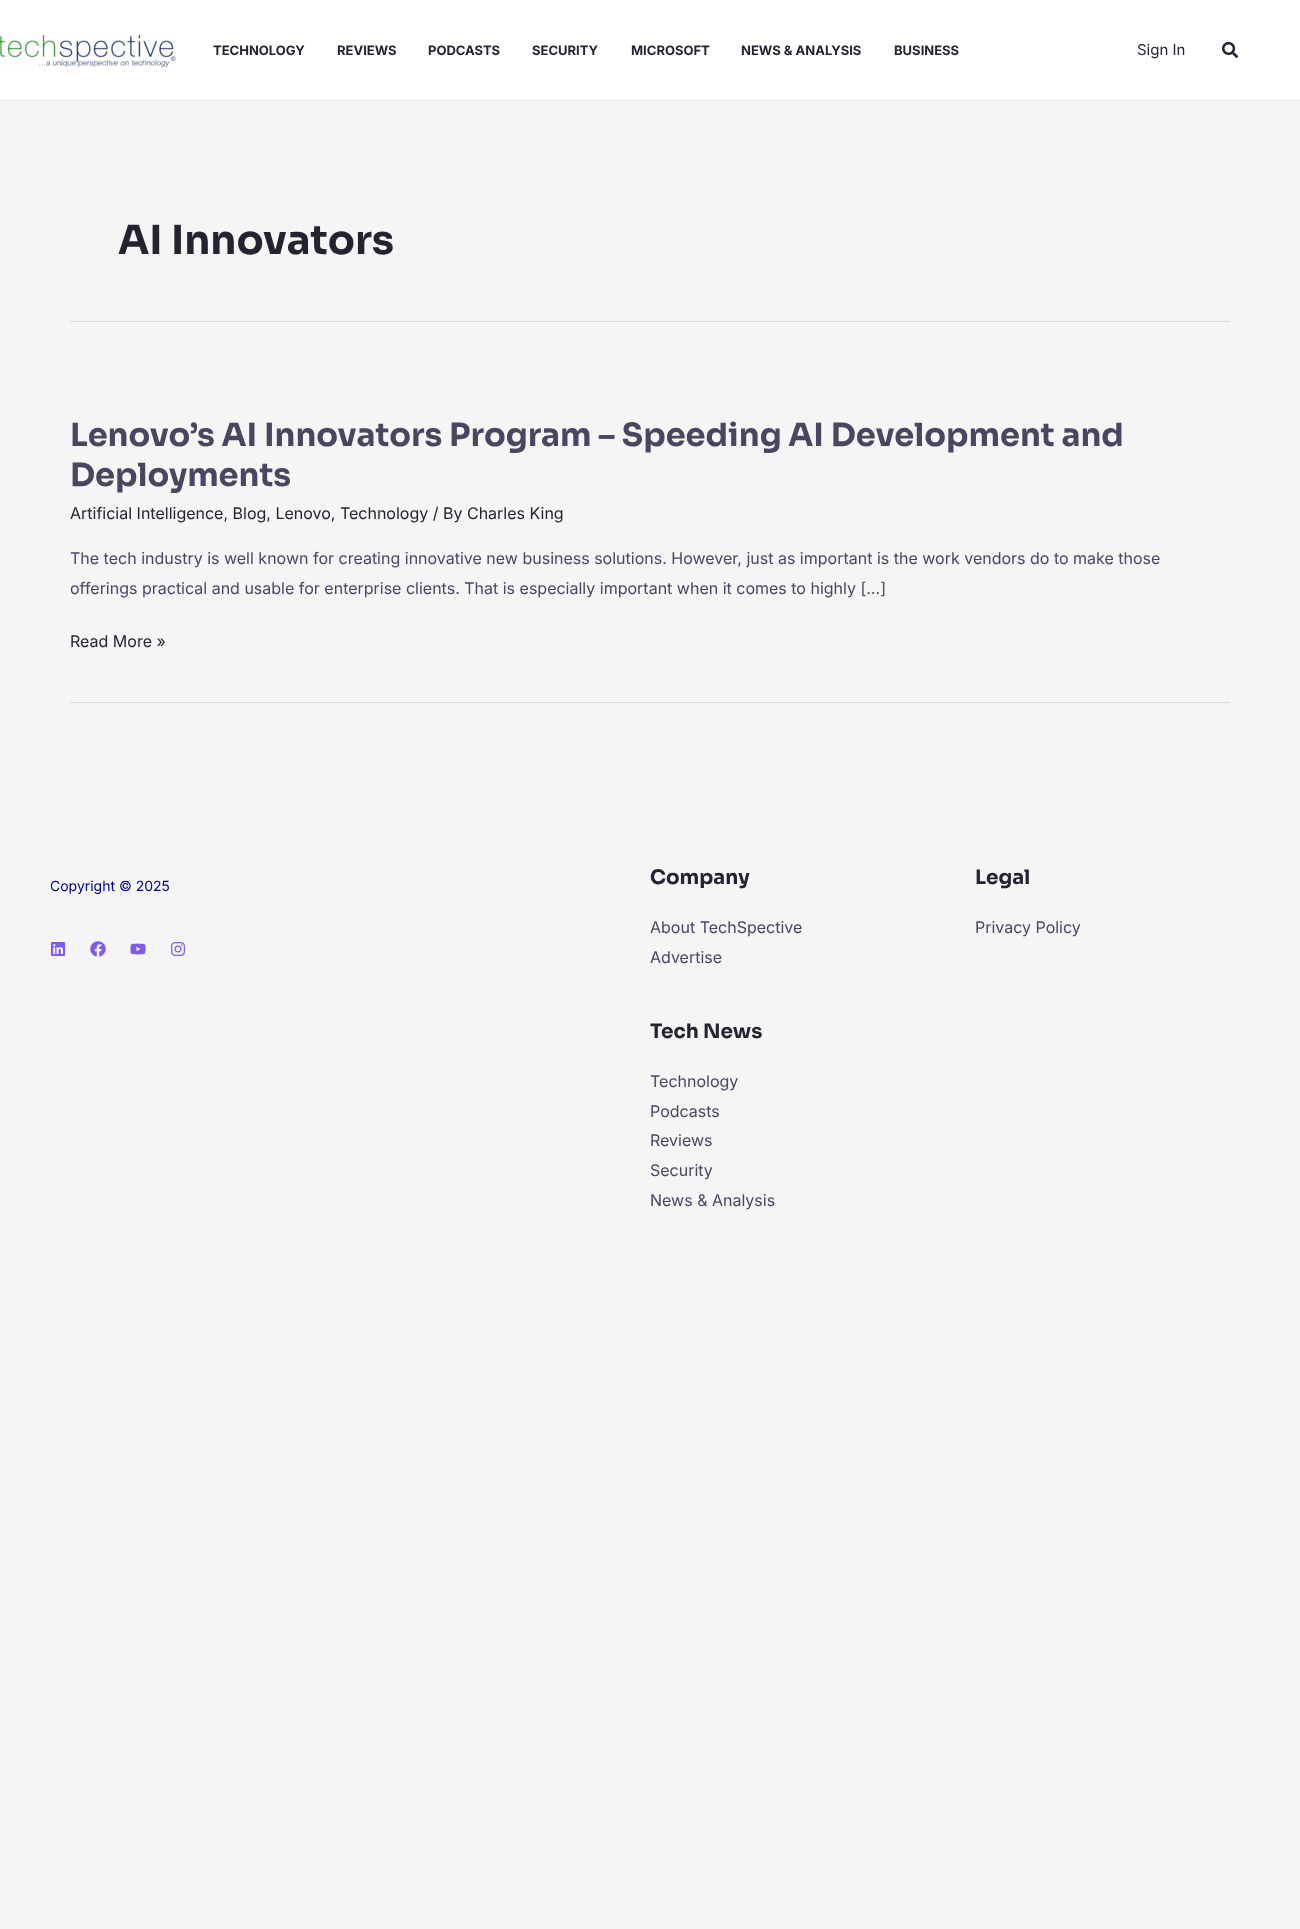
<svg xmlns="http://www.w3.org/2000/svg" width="1300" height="1929">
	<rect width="100%" height="100%" fill="#F5F5F5" />
	<rect x="0" y="0" width="1300" height="100" fill="#FFFFFF" />
	<rect x="0" y="100" width="1300" height="1" fill="#EAEAEA" />
	<image x="0" y="34" width="176" height="34" href="assets/img1.png" />
	<g font-family="Inter" font-size="13" font-weight="700" fill="#26222F">
		<text x="213" y="55">TECHNOLOGY</text>
		<text x="337" y="55">REVIEWS</text>
		<text x="428" y="55">PODCASTS</text>
		<text x="532" y="55">SECURITY</text>
		<text x="631" y="55">MICROSOFT</text>
		<text x="741" y="55">NEWS &amp; ANALYSIS</text>
		<text x="894" y="55">BUSINESS</text>
	</g>
	<text x="1137" y="55" font-family="Inter" font-size="15" fill="#26222F">Sign In</text>
	<image x="1222" y="41" width="16" height="17" href="assets/img2.png" />
	<rect x="70" y="321" width="1160" height="1" fill="#DDDDDD" />
	<text x="118" y="254" font-family="Sora" font-size="40" font-weight="700" fill="#26222F">AI Innovators</text>
	<rect x="70" y="702" width="1160" height="1" fill="#DDDDDD" />
	<g font-family="Sora" font-size="32" font-weight="700" fill="#4C455F">
		<text x="70" y="446">Lenovo’s AI Innovators Program – Speeding AI Development and</text>
		<text x="70" y="486">Deployments</text>
	</g>
	<text x="70" y="519" font-family="Inter" font-size="16" fill="#26222F">Artificial Intelligence, Blog, Lenovo, Technology / By Charles King</text>
	<g font-family="Inter" font-size="16" fill="#4C455F">
		<text x="70" y="564">The tech industry is well known for creating innovative new business solutions. However, just as important is the work vendors do to make those</text>
		<text x="70" y="594">offerings practical and usable for enterprise clients. That is especially important when it comes to highly […]</text>
	</g>
	<text x="70" y="647" font-family="Inter" font-size="16" fill="#26222F">Read More »</text>
	<text x="50" y="891" font-family="Inter" font-size="14" fill="#000080">Copyright © 2025</text>
	<image x="51" y="942" width="14" height="14" href="assets/img3.png" />
	<image x="90" y="941" width="16" height="16" href="assets/img4.png" />
	<image x="130" y="943" width="16" height="12" href="assets/img5.png" />
	<image x="171" y="942" width="14" height="14" href="assets/img6.png" />
	<text x="650" y="884" font-family="Sora" font-size="20" font-weight="700" fill="#26222F">Company</text>
	<g font-family="Inter" font-size="16" fill="#4C455F">
		<text x="650" y="933">About TechSpective</text>
		<text x="650" y="963">Advertise</text>
	</g>
	<text x="650" y="1038" font-family="Sora" font-size="20" font-weight="700" fill="#26222F">Tech News</text>
	<g font-family="Inter" font-size="16" fill="#4C455F">
		<text x="650" y="1087">Technology</text>
		<text x="650" y="1117">Podcasts</text>
		<text x="650" y="1146">Reviews</text>
		<text x="650" y="1176">Security</text>
		<text x="650" y="1206">News &amp; Analysis</text>
	</g>
	<text x="975" y="884" font-family="Sora" font-size="20" font-weight="700" fill="#26222F">Legal</text>
	<text x="975" y="933" font-family="Inter" font-size="16" fill="#4C455F">Privacy Policy</text>
</svg>
